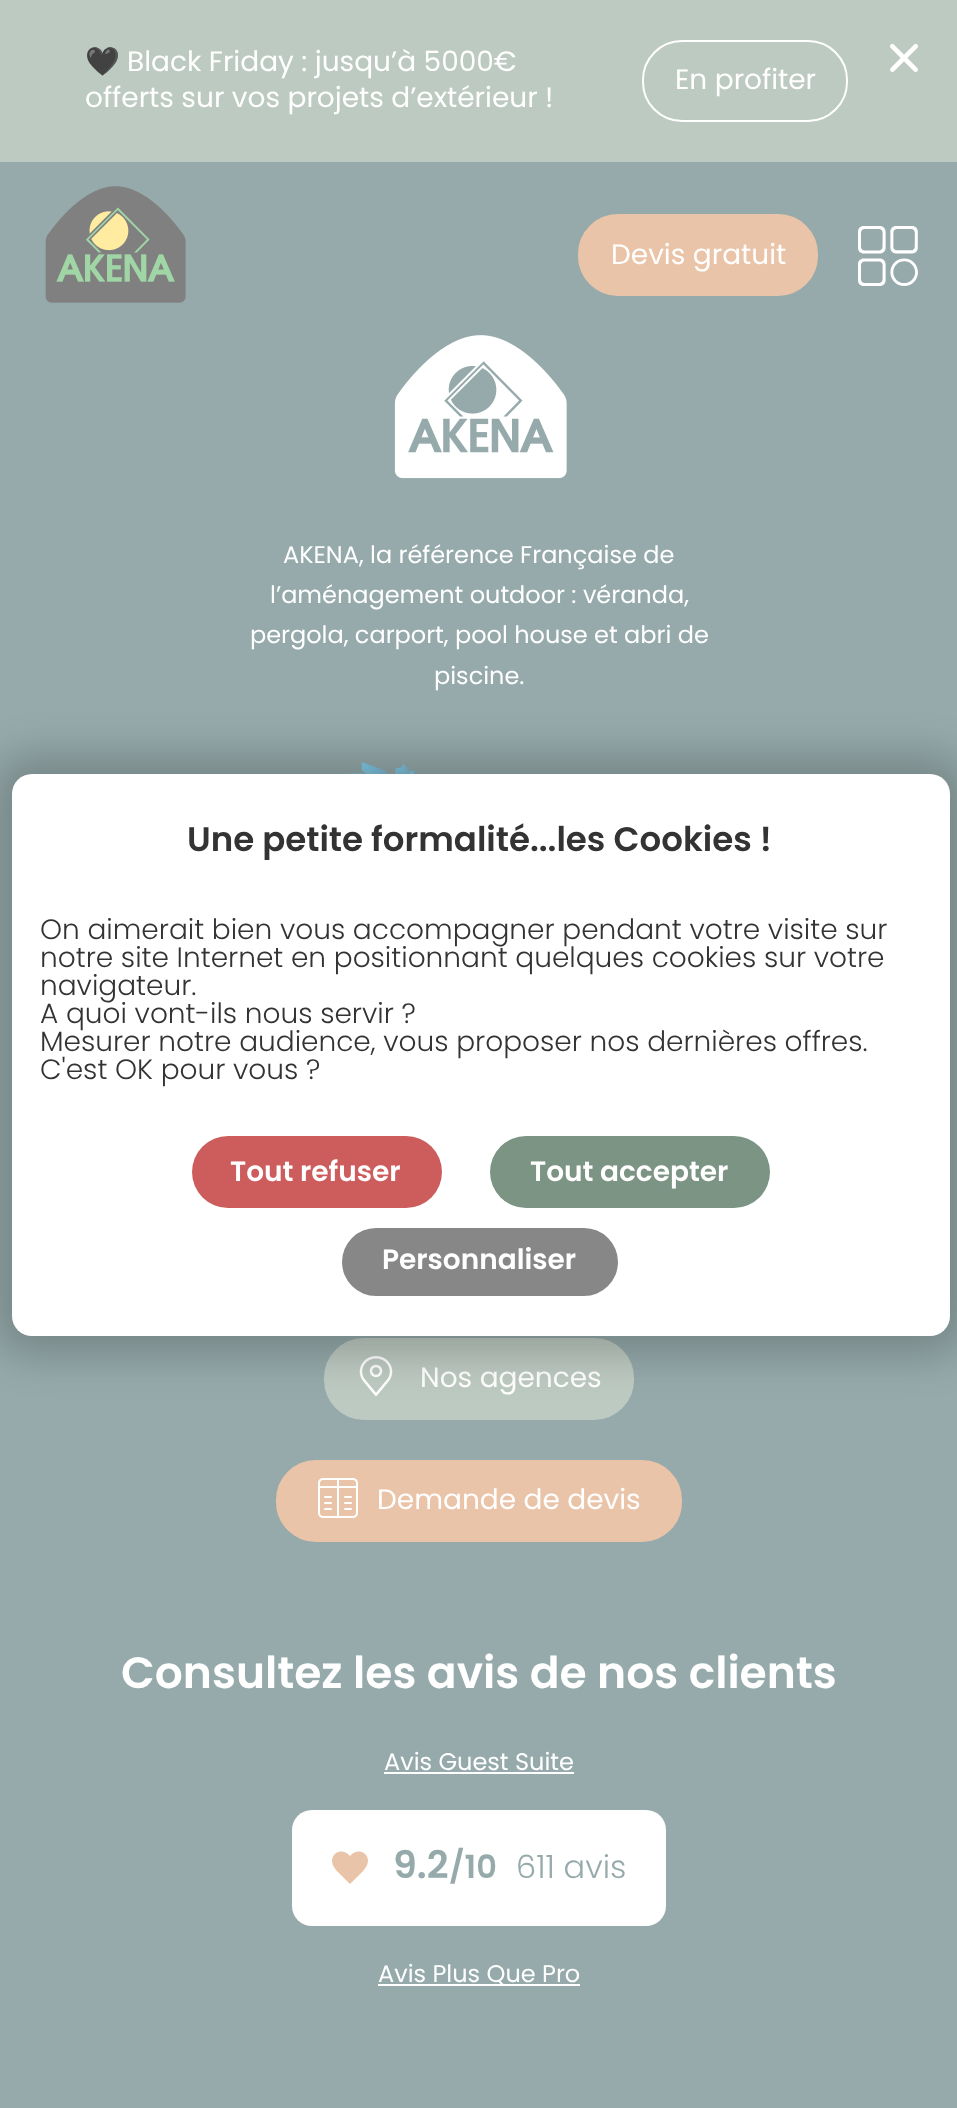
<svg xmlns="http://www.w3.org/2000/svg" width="957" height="2108">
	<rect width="100%" height="100%" fill="#96AAAB" />
	<rect x="0" y="0" width="957" height="162" fill="#BDCAC2" />
	<text x="85" y="71" font-family="Noto Color Emoji" font-size="28" fill="#FFFFFF">🖤</text>
	<g font-family="Poppins" font-size="28" fill="#FFFFFF">
		<text x="127" y="71">Black Friday : jusqu’à 5000€</text>
		<text x="85" y="107">offerts sur vos projets d’extérieur !</text>
	</g>
	<rect x="643" y="41" width="204" height="80" rx="39" fill="none" stroke="#FFFFFF" stroke-width="2" />
	<text x="675" y="89" font-family="Poppins" font-size="28" fill="#FFFFFF">En profiter</text>
	<image x="890" y="44" width="28" height="28" href="assets/img1.png" />
	<image x="45" y="186" width="141" height="117" href="assets/img2.png" />
	<rect x="579" y="215" width="238" height="80" rx="39" fill="#EAC4A8" stroke="#EAC4A8" stroke-width="2" />
	<text x="611" y="264" font-family="Poppins" font-size="28" fill="#FFFFFF">Devis gratuit</text>
	<image x="858" y="226" width="60" height="60" href="assets/img3.png" />
	<image x="394" y="335" width="173" height="144" href="assets/img4.png" />
	<g font-family="Poppins" font-size="24" fill="#FFFFFF">
		<text x="283" y="563">AKENA, la référence Française de</text>
		<text x="270" y="603">l’aménagement outdoor : véranda,</text>
		<text x="250" y="643">pergola, carport, pool house et abri de</text>
		<text x="434" y="684">piscine.</text>
	</g>
	<image x="350" y="762" width="67" height="12" href="assets/img5.png" />
	<rect x="325" y="1339" width="308" height="80" rx="39" fill="#BDCAC2" stroke="#BDCAC2" stroke-width="2" />
	<image x="359" y="1356" width="34" height="40" href="assets/img6.png" />
	<text x="420" y="1387" font-family="Poppins" font-size="28" fill="#FFFFFF">Nos agences</text>
	<rect x="277" y="1461" width="404" height="80" rx="39" fill="#EAC4A8" stroke="#EAC4A8" stroke-width="2" />
	<image x="318" y="1478" width="40" height="40" href="assets/img7.png" />
	<text x="377" y="1509" font-family="Poppins" font-size="28" fill="#FFFFFF">Demande de devis</text>
	<text x="121" y="1688" font-family="Poppins" font-size="44" font-weight="600" fill="#FFFFFF">Consultez les avis de nos clients</text>
	<text x="384" y="1770" font-family="Poppins" font-size="24" fill="#FFFFFF">Avis Guest Suite</text>
	<rect x="384" y="1772" width="190" height="2" fill="#FFFFFF" />
	<rect x="292" y="1810" width="374" height="116" rx="20" fill="#FFFFFF" />
	<image x="332" y="1851" width="36" height="33" href="assets/img8.png" />
	<text x="393" y="1878" font-family="Poppins" font-size="38" font-weight="600" fill="#96AAAB">9.2</text>
	<text x="449" y="1878" font-family="Poppins" font-size="32" font-weight="600" fill="#96AAAB">/10</text>
	<text x="516" y="1878" font-family="Poppins" font-size="32" font-weight="300" fill="#96AAAB">611 avis</text>
	<rect x="378" y="1984" width="202" height="2" fill="#FFFFFF" />
	<text x="378" y="1982" font-family="Poppins" font-size="24" fill="#FFFFFF">Avis Plus Que Pro</text>
	<rect x="-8" y="754" width="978" height="602" rx="40" fill="#000000" fill-opacity="0.2" filter="blur(20px)" />
	<rect x="12" y="774" width="938" height="562" rx="20" fill="#FFFFFF" />
	<text x="187" y="851" font-family="Poppins" font-size="34" font-weight="600" fill="#333333">Une petite formalité...les Cookies !</text>
	<g font-family="Poppins" font-size="28" font-weight="300" fill="#333333">
		<text x="40" y="939">On aimerait bien vous accompagner pendant votre visite sur</text>
		<text x="40" y="967">notre site Internet en positionnant quelques cookies sur votre</text>
		<text x="40" y="995">navigateur.</text>
		<text x="40" y="1023">A quoi vont-ils nous servir ?</text>
		<text x="40" y="1051">Mesurer notre audience, vous proposer nos dernières offres.</text>
		<text x="40" y="1079">C'est OK pour vous ?</text>
	</g>
	<rect x="192" y="1136" width="250" height="72" rx="36" fill="#CD5C5C" />
	<text x="230" y="1181" font-family="Poppins" font-size="28" font-weight="600" fill="#FFFFFF">Tout refuser</text>
	<rect x="490" y="1136" width="280" height="72" rx="36" fill="#7B9484" />
	<text x="530" y="1181" font-family="Poppins" font-size="28" font-weight="600" fill="#FFFFFF">Tout accepter</text>
	<rect x="342" y="1228" width="276" height="68" rx="34" fill="#878787" />
	<text x="382" y="1269" font-family="Poppins" font-size="28" font-weight="600" fill="#FFFFFF">Personnaliser</text>
</svg>
